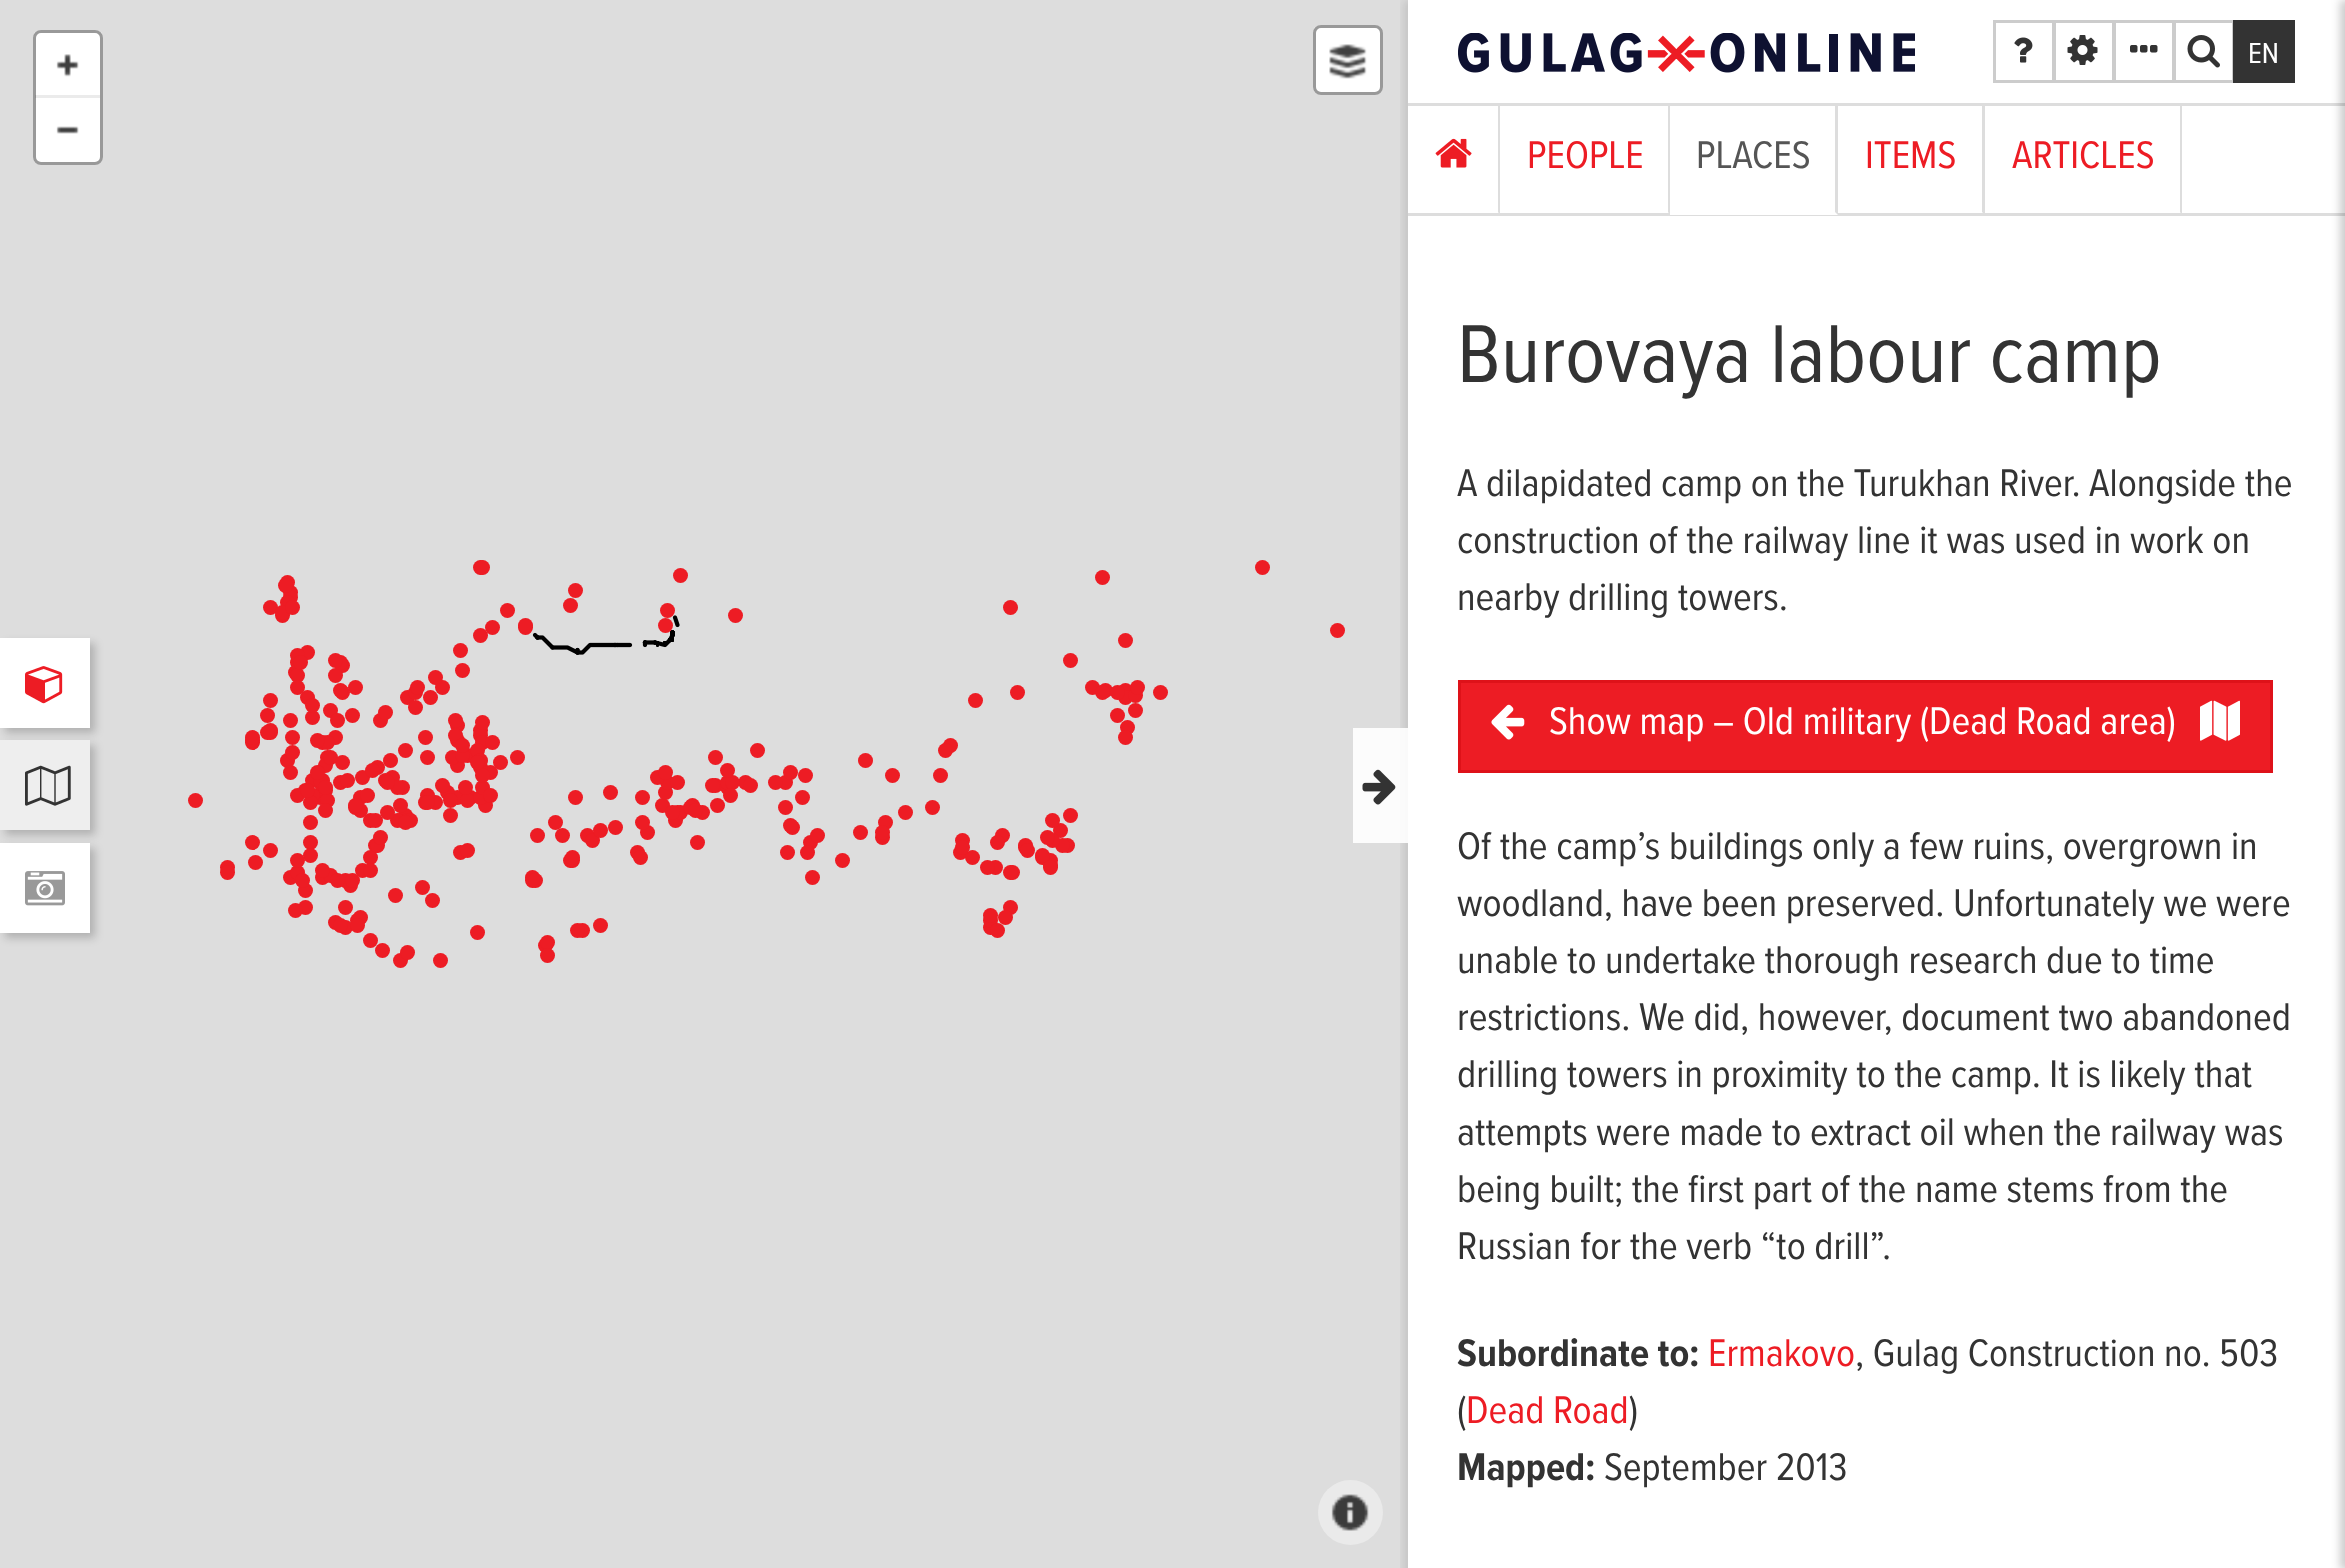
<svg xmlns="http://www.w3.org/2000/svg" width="2345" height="1568">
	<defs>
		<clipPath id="clip1"><rect x="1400" y="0" width="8" height="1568" /></clipPath>
	</defs>
	<rect width="100%" height="100%" fill="#FFFFFF" />
	<rect x="0" y="0" width="1408" height="1568" fill="#DDDDDD" />
	<rect x="33" y="30" width="70" height="135" rx="8" fill="#FFFFFF" />
	<rect x="34.5" y="31.5" width="67" height="132" rx="6.5" fill="none" stroke="#000000" stroke-opacity="0.4" stroke-width="3" />
	<image x="56" y="54" width="23" height="23" href="assets/img1.png" />
	<rect x="35" y="95" width="65" height="3" fill="#000000" fill-opacity="0.08" />
	<image x="56" y="126" width="23" height="8" href="assets/img2.png" />
	<rect x="1313" y="25" width="70" height="70" rx="8" fill="#FFFFFF" />
	<rect x="1314.5" y="26.5" width="67" height="67" rx="6.5" fill="none" stroke="#000000" stroke-opacity="0.4" stroke-width="3" />
	<image x="1329" y="44" width="38" height="35" href="assets/img3.png" />
	<circle cx="1350.5" cy="1512.5" r="32.5" fill="#EAEAEA" />
	<image x="1331" y="1494" width="38" height="37" href="assets/img4.png" />
	<circle cx="480.5" cy="567.5" r="7.5" fill="#ED1C24" />
	<circle cx="290.5" cy="592.5" r="7.5" fill="#ED1C24" />
	<circle cx="287.5" cy="582.5" r="7.5" fill="#ED1C24" />
	<circle cx="482.5" cy="567.5" r="7.5" fill="#ED1C24" />
	<circle cx="680.5" cy="575.5" r="7.5" fill="#ED1C24" />
	<circle cx="1102.5" cy="577.5" r="7.5" fill="#ED1C24" />
	<circle cx="1262.5" cy="567.5" r="7.5" fill="#ED1C24" />
	<circle cx="290.5" cy="597.5" r="7.5" fill="#ED1C24" />
	<circle cx="285.5" cy="585.5" r="7.5" fill="#ED1C24" />
	<circle cx="575.5" cy="590.5" r="7.5" fill="#ED1C24" />
	<circle cx="270.5" cy="607.5" r="7.5" fill="#ED1C24" />
	<circle cx="287.5" cy="602.5" r="7.5" fill="#ED1C24" />
	<circle cx="570.5" cy="605.5" r="7.5" fill="#ED1C24" />
	<circle cx="282.5" cy="615.5" r="7.5" fill="#ED1C24" />
	<circle cx="282.5" cy="612.5" r="7.5" fill="#ED1C24" />
	<circle cx="292.5" cy="607.5" r="7.5" fill="#ED1C24" />
	<circle cx="507.5" cy="610.5" r="7.5" fill="#ED1C24" />
	<image x="532" y="615" width="148" height="40" href="assets/img5.png" />
	<circle cx="667.5" cy="610.5" r="7.5" fill="#ED1C24" />
	<circle cx="1010.5" cy="607.5" r="7.5" fill="#ED1C24" />
	<circle cx="735.5" cy="615.5" r="7.5" fill="#ED1C24" />
	<circle cx="480.5" cy="635.5" r="7.5" fill="#ED1C24" />
	<circle cx="492.5" cy="627.5" r="7.5" fill="#ED1C24" />
	<circle cx="525.5" cy="627.5" r="7.5" fill="#ED1C24" />
	<circle cx="525.5" cy="625.5" r="7.5" fill="#ED1C24" />
	<circle cx="665.5" cy="625.5" r="7.5" fill="#ED1C24" />
	<circle cx="1125.5" cy="640.5" r="7.5" fill="#ED1C24" />
	<circle cx="1337.5" cy="630.5" r="7.5" fill="#ED1C24" />
	<circle cx="295.5" cy="672.5" r="7.5" fill="#ED1C24" />
	<circle cx="297.5" cy="662.5" r="7.5" fill="#ED1C24" />
	<circle cx="307.5" cy="652.5" r="7.5" fill="#ED1C24" />
	<circle cx="297.5" cy="655.5" r="7.5" fill="#ED1C24" />
	<circle cx="342.5" cy="665.5" r="7.5" fill="#ED1C24" />
	<circle cx="335.5" cy="675.5" r="7.5" fill="#ED1C24" />
	<circle cx="340.5" cy="662.5" r="7.5" fill="#ED1C24" />
	<circle cx="335.5" cy="660.5" r="7.5" fill="#ED1C24" />
	<circle cx="460.5" cy="650.5" r="7.5" fill="#ED1C24" />
	<circle cx="1070.5" cy="660.5" r="7.5" fill="#ED1C24" />
	<circle cx="297.5" cy="675.5" r="7.5" fill="#ED1C24" />
	<circle cx="300.5" cy="662.5" r="7.5" fill="#ED1C24" />
	<circle cx="462.5" cy="670.5" r="7.5" fill="#ED1C24" />
	<circle cx="442.5" cy="687.5" r="7.5" fill="#ED1C24" />
	<circle cx="435.5" cy="677.5" r="7.5" fill="#ED1C24" />
	<circle cx="307.5" cy="697.5" r="7.5" fill="#ED1C24" />
	<circle cx="297.5" cy="687.5" r="7.5" fill="#ED1C24" />
	<circle cx="355.5" cy="687.5" r="7.5" fill="#ED1C24" />
	<circle cx="342.5" cy="692.5" r="7.5" fill="#ED1C24" />
	<circle cx="340.5" cy="690.5" r="7.5" fill="#ED1C24" />
	<circle cx="407.5" cy="697.5" r="7.5" fill="#ED1C24" />
	<circle cx="415.5" cy="692.5" r="7.5" fill="#ED1C24" />
	<circle cx="430.5" cy="697.5" r="7.5" fill="#ED1C24" />
	<circle cx="417.5" cy="687.5" r="7.5" fill="#ED1C24" />
	<circle cx="1092.5" cy="687.5" r="7.5" fill="#ED1C24" />
	<circle cx="1105.5" cy="690.5" r="7.5" fill="#ED1C24" />
	<circle cx="1125.5" cy="690.5" r="7.5" fill="#ED1C24" />
	<circle cx="1135.5" cy="710.5" r="7.5" fill="#ED1C24" />
	<circle cx="1125.5" cy="697.5" r="7.5" fill="#ED1C24" />
	<circle cx="1135.5" cy="695.5" r="7.5" fill="#ED1C24" />
	<circle cx="1137.5" cy="687.5" r="7.5" fill="#ED1C24" />
	<circle cx="270.5" cy="700.5" r="7.5" fill="#ED1C24" />
	<circle cx="975.5" cy="700.5" r="7.5" fill="#ED1C24" />
	<circle cx="1017.5" cy="692.5" r="7.5" fill="#ED1C24" />
	<circle cx="1102.5" cy="692.5" r="7.5" fill="#ED1C24" />
	<circle cx="1117.5" cy="692.5" r="7.5" fill="#ED1C24" />
	<circle cx="1160.5" cy="692.5" r="7.5" fill="#ED1C24" />
	<circle cx="267.5" cy="715.5" r="7.5" fill="#ED1C24" />
	<circle cx="312.5" cy="717.5" r="7.5" fill="#ED1C24" />
	<circle cx="312.5" cy="705.5" r="7.5" fill="#ED1C24" />
	<circle cx="330.5" cy="710.5" r="7.5" fill="#ED1C24" />
	<circle cx="352.5" cy="715.5" r="7.5" fill="#ED1C24" />
	<circle cx="380.5" cy="720.5" r="7.5" fill="#ED1C24" />
	<circle cx="385.5" cy="712.5" r="7.5" fill="#ED1C24" />
	<circle cx="415.5" cy="707.5" r="7.5" fill="#ED1C24" />
	<circle cx="1127.5" cy="727.5" r="7.5" fill="#ED1C24" />
	<circle cx="1117.5" cy="715.5" r="7.5" fill="#ED1C24" />
	<circle cx="290.5" cy="720.5" r="7.5" fill="#ED1C24" />
	<circle cx="337.5" cy="720.5" r="7.5" fill="#ED1C24" />
	<circle cx="457.5" cy="725.5" r="7.5" fill="#ED1C24" />
	<circle cx="455.5" cy="720.5" r="7.5" fill="#ED1C24" />
	<circle cx="480.5" cy="730.5" r="7.5" fill="#ED1C24" />
	<circle cx="480.5" cy="735.5" r="7.5" fill="#ED1C24" />
	<circle cx="482.5" cy="722.5" r="7.5" fill="#ED1C24" />
	<circle cx="270.5" cy="730.5" r="7.5" fill="#ED1C24" />
	<circle cx="270.5" cy="732.5" r="7.5" fill="#ED1C24" />
	<circle cx="267.5" cy="732.5" r="7.5" fill="#ED1C24" />
	<circle cx="252.5" cy="742.5" r="7.5" fill="#ED1C24" />
	<circle cx="252.5" cy="740.5" r="7.5" fill="#ED1C24" />
	<circle cx="252.5" cy="737.5" r="7.5" fill="#ED1C24" />
	<circle cx="292.5" cy="737.5" r="7.5" fill="#ED1C24" />
	<circle cx="335.5" cy="737.5" r="7.5" fill="#ED1C24" />
	<circle cx="425.5" cy="737.5" r="7.5" fill="#ED1C24" />
	<circle cx="457.5" cy="740.5" r="7.5" fill="#ED1C24" />
	<circle cx="455.5" cy="735.5" r="7.5" fill="#ED1C24" />
	<circle cx="1125.5" cy="737.5" r="7.5" fill="#ED1C24" />
	<circle cx="322.5" cy="742.5" r="7.5" fill="#ED1C24" />
	<circle cx="327.5" cy="742.5" r="7.5" fill="#ED1C24" />
	<circle cx="317.5" cy="740.5" r="7.5" fill="#ED1C24" />
	<circle cx="405.5" cy="750.5" r="7.5" fill="#ED1C24" />
	<circle cx="457.5" cy="765.5" r="7.5" fill="#ED1C24" />
	<circle cx="467.5" cy="755.5" r="7.5" fill="#ED1C24" />
	<circle cx="452.5" cy="757.5" r="7.5" fill="#ED1C24" />
	<circle cx="462.5" cy="755.5" r="7.5" fill="#ED1C24" />
	<circle cx="462.5" cy="745.5" r="7.5" fill="#ED1C24" />
	<circle cx="482.5" cy="742.5" r="7.5" fill="#ED1C24" />
	<circle cx="492.5" cy="742.5" r="7.5" fill="#ED1C24" />
	<circle cx="950.5" cy="745.5" r="7.5" fill="#ED1C24" />
	<circle cx="287.5" cy="760.5" r="7.5" fill="#ED1C24" />
	<circle cx="292.5" cy="752.5" r="7.5" fill="#ED1C24" />
	<circle cx="477.5" cy="750.5" r="7.5" fill="#ED1C24" />
	<circle cx="757.5" cy="750.5" r="7.5" fill="#ED1C24" />
	<circle cx="945.5" cy="750.5" r="7.5" fill="#ED1C24" />
	<circle cx="327.5" cy="757.5" r="7.5" fill="#ED1C24" />
	<circle cx="325.5" cy="765.5" r="7.5" fill="#ED1C24" />
	<circle cx="330.5" cy="757.5" r="7.5" fill="#ED1C24" />
	<circle cx="342.5" cy="762.5" r="7.5" fill="#ED1C24" />
	<circle cx="390.5" cy="760.5" r="7.5" fill="#ED1C24" />
	<circle cx="427.5" cy="757.5" r="7.5" fill="#ED1C24" />
	<circle cx="490.5" cy="772.5" r="7.5" fill="#ED1C24" />
	<circle cx="480.5" cy="767.5" r="7.5" fill="#ED1C24" />
	<circle cx="480.5" cy="760.5" r="7.5" fill="#ED1C24" />
	<circle cx="517.5" cy="757.5" r="7.5" fill="#ED1C24" />
	<circle cx="715.5" cy="757.5" r="7.5" fill="#ED1C24" />
	<circle cx="865.5" cy="760.5" r="7.5" fill="#ED1C24" />
	<circle cx="377.5" cy="767.5" r="7.5" fill="#ED1C24" />
	<circle cx="457.5" cy="797.5" r="7.5" fill="#ED1C24" />
	<circle cx="470.5" cy="797.5" r="7.5" fill="#ED1C24" />
	<circle cx="467.5" cy="800.5" r="7.5" fill="#ED1C24" />
	<circle cx="485.5" cy="805.5" r="7.5" fill="#ED1C24" />
	<circle cx="480.5" cy="797.5" r="7.5" fill="#ED1C24" />
	<circle cx="482.5" cy="787.5" r="7.5" fill="#ED1C24" />
	<circle cx="482.5" cy="775.5" r="7.5" fill="#ED1C24" />
	<circle cx="477.5" cy="762.5" r="7.5" fill="#ED1C24" />
	<circle cx="500.5" cy="762.5" r="7.5" fill="#ED1C24" />
	<circle cx="290.5" cy="772.5" r="7.5" fill="#ED1C24" />
	<circle cx="320.5" cy="782.5" r="7.5" fill="#ED1C24" />
	<circle cx="305.5" cy="790.5" r="7.5" fill="#ED1C24" />
	<circle cx="320.5" cy="797.5" r="7.5" fill="#ED1C24" />
	<circle cx="322.5" cy="790.5" r="7.5" fill="#ED1C24" />
	<circle cx="325.5" cy="790.5" r="7.5" fill="#ED1C24" />
	<circle cx="312.5" cy="780.5" r="7.5" fill="#ED1C24" />
	<circle cx="322.5" cy="780.5" r="7.5" fill="#ED1C24" />
	<circle cx="320.5" cy="780.5" r="7.5" fill="#ED1C24" />
	<circle cx="317.5" cy="772.5" r="7.5" fill="#ED1C24" />
	<circle cx="362.5" cy="777.5" r="7.5" fill="#ED1C24" />
	<circle cx="402.5" cy="787.5" r="7.5" fill="#ED1C24" />
	<circle cx="392.5" cy="777.5" r="7.5" fill="#ED1C24" />
	<circle cx="385.5" cy="780.5" r="7.5" fill="#ED1C24" />
	<circle cx="372.5" cy="770.5" r="7.5" fill="#ED1C24" />
	<circle cx="662.5" cy="805.5" r="7.5" fill="#ED1C24" />
	<circle cx="665.5" cy="792.5" r="7.5" fill="#ED1C24" />
	<circle cx="667.5" cy="782.5" r="7.5" fill="#ED1C24" />
	<circle cx="657.5" cy="777.5" r="7.5" fill="#ED1C24" />
	<circle cx="677.5" cy="782.5" r="7.5" fill="#ED1C24" />
	<circle cx="665.5" cy="772.5" r="7.5" fill="#ED1C24" />
	<circle cx="715.5" cy="785.5" r="7.5" fill="#ED1C24" />
	<circle cx="727.5" cy="787.5" r="7.5" fill="#ED1C24" />
	<circle cx="727.5" cy="782.5" r="7.5" fill="#ED1C24" />
	<circle cx="745.5" cy="782.5" r="7.5" fill="#ED1C24" />
	<circle cx="732.5" cy="782.5" r="7.5" fill="#ED1C24" />
	<circle cx="727.5" cy="770.5" r="7.5" fill="#ED1C24" />
	<circle cx="785.5" cy="782.5" r="7.5" fill="#ED1C24" />
	<circle cx="790.5" cy="772.5" r="7.5" fill="#ED1C24" />
	<circle cx="805.5" cy="775.5" r="7.5" fill="#ED1C24" />
	<circle cx="892.5" cy="775.5" r="7.5" fill="#ED1C24" />
	<circle cx="940.5" cy="775.5" r="7.5" fill="#ED1C24" />
	<circle cx="340.5" cy="782.5" r="7.5" fill="#ED1C24" />
	<circle cx="347.5" cy="780.5" r="7.5" fill="#ED1C24" />
	<circle cx="397.5" cy="787.5" r="7.5" fill="#ED1C24" />
	<circle cx="387.5" cy="782.5" r="7.5" fill="#ED1C24" />
	<circle cx="435.5" cy="802.5" r="7.5" fill="#ED1C24" />
	<circle cx="447.5" cy="792.5" r="7.5" fill="#ED1C24" />
	<circle cx="442.5" cy="785.5" r="7.5" fill="#ED1C24" />
	<circle cx="712.5" cy="785.5" r="7.5" fill="#ED1C24" />
	<circle cx="775.5" cy="782.5" r="7.5" fill="#ED1C24" />
	<circle cx="312.5" cy="795.5" r="7.5" fill="#ED1C24" />
	<circle cx="327.5" cy="800.5" r="7.5" fill="#ED1C24" />
	<circle cx="325.5" cy="787.5" r="7.5" fill="#ED1C24" />
	<circle cx="750.5" cy="785.5" r="7.5" fill="#ED1C24" />
	<circle cx="465.5" cy="787.5" r="7.5" fill="#ED1C24" />
	<circle cx="297.5" cy="795.5" r="7.5" fill="#ED1C24" />
	<circle cx="310.5" cy="802.5" r="7.5" fill="#ED1C24" />
	<circle cx="307.5" cy="790.5" r="7.5" fill="#ED1C24" />
	<circle cx="360.5" cy="797.5" r="7.5" fill="#ED1C24" />
	<circle cx="367.5" cy="795.5" r="7.5" fill="#ED1C24" />
	<circle cx="427.5" cy="795.5" r="7.5" fill="#ED1C24" />
	<circle cx="490.5" cy="795.5" r="7.5" fill="#ED1C24" />
	<circle cx="610.5" cy="792.5" r="7.5" fill="#ED1C24" />
	<circle cx="717.5" cy="805.5" r="7.5" fill="#ED1C24" />
	<circle cx="730.5" cy="795.5" r="7.5" fill="#ED1C24" />
	<circle cx="195.5" cy="800.5" r="7.5" fill="#ED1C24" />
	<circle cx="575.5" cy="797.5" r="7.5" fill="#ED1C24" />
	<circle cx="642.5" cy="797.5" r="7.5" fill="#ED1C24" />
	<circle cx="802.5" cy="797.5" r="7.5" fill="#ED1C24" />
	<circle cx="425.5" cy="802.5" r="7.5" fill="#ED1C24" />
	<circle cx="450.5" cy="800.5" r="7.5" fill="#ED1C24" />
	<circle cx="355.5" cy="807.5" r="7.5" fill="#ED1C24" />
	<circle cx="370.5" cy="820.5" r="7.5" fill="#ED1C24" />
	<circle cx="360.5" cy="810.5" r="7.5" fill="#ED1C24" />
	<circle cx="355.5" cy="805.5" r="7.5" fill="#ED1C24" />
	<circle cx="405.5" cy="815.5" r="7.5" fill="#ED1C24" />
	<circle cx="400.5" cy="805.5" r="7.5" fill="#ED1C24" />
	<circle cx="427.5" cy="802.5" r="7.5" fill="#ED1C24" />
	<circle cx="677.5" cy="812.5" r="7.5" fill="#ED1C24" />
	<circle cx="675.5" cy="820.5" r="7.5" fill="#ED1C24" />
	<circle cx="680.5" cy="812.5" r="7.5" fill="#ED1C24" />
	<circle cx="692.5" cy="805.5" r="7.5" fill="#ED1C24" />
	<circle cx="325.5" cy="810.5" r="7.5" fill="#ED1C24" />
	<circle cx="690.5" cy="807.5" r="7.5" fill="#ED1C24" />
	<circle cx="785.5" cy="807.5" r="7.5" fill="#ED1C24" />
	<circle cx="932.5" cy="807.5" r="7.5" fill="#ED1C24" />
	<circle cx="375.5" cy="820.5" r="7.5" fill="#ED1C24" />
	<circle cx="407.5" cy="820.5" r="7.5" fill="#ED1C24" />
	<circle cx="410.5" cy="820.5" r="7.5" fill="#ED1C24" />
	<circle cx="397.5" cy="820.5" r="7.5" fill="#ED1C24" />
	<circle cx="387.5" cy="812.5" r="7.5" fill="#ED1C24" />
	<circle cx="672.5" cy="812.5" r="7.5" fill="#ED1C24" />
	<circle cx="702.5" cy="812.5" r="7.5" fill="#ED1C24" />
	<circle cx="695.5" cy="810.5" r="7.5" fill="#ED1C24" />
	<circle cx="450.5" cy="815.5" r="7.5" fill="#ED1C24" />
	<circle cx="905.5" cy="812.5" r="7.5" fill="#ED1C24" />
	<circle cx="1070.5" cy="815.5" r="7.5" fill="#ED1C24" />
	<circle cx="310.5" cy="822.5" r="7.5" fill="#ED1C24" />
	<circle cx="1060.5" cy="830.5" r="7.5" fill="#ED1C24" />
	<circle cx="1052.5" cy="820.5" r="7.5" fill="#ED1C24" />
	<circle cx="405.5" cy="822.5" r="7.5" fill="#ED1C24" />
	<circle cx="555.5" cy="822.5" r="7.5" fill="#ED1C24" />
	<circle cx="615.5" cy="827.5" r="7.5" fill="#ED1C24" />
	<circle cx="647.5" cy="832.5" r="7.5" fill="#ED1C24" />
	<circle cx="642.5" cy="822.5" r="7.5" fill="#ED1C24" />
	<circle cx="792.5" cy="827.5" r="7.5" fill="#ED1C24" />
	<circle cx="790.5" cy="825.5" r="7.5" fill="#ED1C24" />
	<circle cx="885.5" cy="822.5" r="7.5" fill="#ED1C24" />
	<circle cx="375.5" cy="845.5" r="7.5" fill="#ED1C24" />
	<circle cx="362.5" cy="870.5" r="7.5" fill="#ED1C24" />
	<circle cx="370.5" cy="857.5" r="7.5" fill="#ED1C24" />
	<circle cx="377.5" cy="845.5" r="7.5" fill="#ED1C24" />
	<circle cx="380.5" cy="837.5" r="7.5" fill="#ED1C24" />
	<circle cx="537.5" cy="835.5" r="7.5" fill="#ED1C24" />
	<circle cx="562.5" cy="835.5" r="7.5" fill="#ED1C24" />
	<circle cx="587.5" cy="835.5" r="7.5" fill="#ED1C24" />
	<circle cx="592.5" cy="840.5" r="7.5" fill="#ED1C24" />
	<circle cx="600.5" cy="830.5" r="7.5" fill="#ED1C24" />
	<circle cx="810.5" cy="842.5" r="7.5" fill="#ED1C24" />
	<circle cx="817.5" cy="835.5" r="7.5" fill="#ED1C24" />
	<circle cx="860.5" cy="832.5" r="7.5" fill="#ED1C24" />
	<circle cx="882.5" cy="837.5" r="7.5" fill="#ED1C24" />
	<circle cx="882.5" cy="832.5" r="7.5" fill="#ED1C24" />
	<circle cx="1002.5" cy="835.5" r="7.5" fill="#ED1C24" />
	<circle cx="960.5" cy="852.5" r="7.5" fill="#ED1C24" />
	<circle cx="962.5" cy="840.5" r="7.5" fill="#ED1C24" />
	<circle cx="1067.5" cy="845.5" r="7.5" fill="#ED1C24" />
	<circle cx="1062.5" cy="845.5" r="7.5" fill="#ED1C24" />
	<circle cx="1052.5" cy="840.5" r="7.5" fill="#ED1C24" />
	<circle cx="1047.5" cy="837.5" r="7.5" fill="#ED1C24" />
	<circle cx="252.5" cy="842.5" r="7.5" fill="#ED1C24" />
	<circle cx="310.5" cy="842.5" r="7.5" fill="#ED1C24" />
	<circle cx="697.5" cy="842.5" r="7.5" fill="#ED1C24" />
	<circle cx="997.5" cy="842.5" r="7.5" fill="#ED1C24" />
	<circle cx="1025.5" cy="847.5" r="7.5" fill="#ED1C24" />
	<circle cx="1025.5" cy="845.5" r="7.5" fill="#ED1C24" />
	<circle cx="270.5" cy="850.5" r="7.5" fill="#ED1C24" />
	<circle cx="460.5" cy="852.5" r="7.5" fill="#ED1C24" />
	<circle cx="467.5" cy="850.5" r="7.5" fill="#ED1C24" />
	<circle cx="972.5" cy="857.5" r="7.5" fill="#ED1C24" />
	<circle cx="962.5" cy="847.5" r="7.5" fill="#ED1C24" />
	<circle cx="310.5" cy="855.5" r="7.5" fill="#ED1C24" />
	<circle cx="570.5" cy="860.5" r="7.5" fill="#ED1C24" />
	<circle cx="572.5" cy="860.5" r="7.5" fill="#ED1C24" />
	<circle cx="572.5" cy="857.5" r="7.5" fill="#ED1C24" />
	<circle cx="637.5" cy="852.5" r="7.5" fill="#ED1C24" />
	<circle cx="787.5" cy="852.5" r="7.5" fill="#ED1C24" />
	<circle cx="807.5" cy="852.5" r="7.5" fill="#ED1C24" />
	<circle cx="1027.5" cy="850.5" r="7.5" fill="#ED1C24" />
	<circle cx="1050.5" cy="865.5" r="7.5" fill="#ED1C24" />
	<circle cx="1050.5" cy="860.5" r="7.5" fill="#ED1C24" />
	<circle cx="1042.5" cy="857.5" r="7.5" fill="#ED1C24" />
	<circle cx="1042.5" cy="855.5" r="7.5" fill="#ED1C24" />
	<circle cx="290.5" cy="877.5" r="7.5" fill="#ED1C24" />
	<circle cx="297.5" cy="872.5" r="7.5" fill="#ED1C24" />
	<circle cx="297.5" cy="860.5" r="7.5" fill="#ED1C24" />
	<circle cx="640.5" cy="857.5" r="7.5" fill="#ED1C24" />
	<circle cx="255.5" cy="862.5" r="7.5" fill="#ED1C24" />
	<circle cx="842.5" cy="860.5" r="7.5" fill="#ED1C24" />
	<circle cx="227.5" cy="867.5" r="7.5" fill="#ED1C24" />
	<circle cx="995.5" cy="867.5" r="7.5" fill="#ED1C24" />
	<circle cx="987.5" cy="867.5" r="7.5" fill="#ED1C24" />
	<circle cx="227.5" cy="872.5" r="7.5" fill="#ED1C24" />
	<circle cx="322.5" cy="877.5" r="7.5" fill="#ED1C24" />
	<circle cx="330.5" cy="875.5" r="7.5" fill="#ED1C24" />
	<circle cx="322.5" cy="870.5" r="7.5" fill="#ED1C24" />
	<circle cx="370.5" cy="870.5" r="7.5" fill="#ED1C24" />
	<circle cx="1012.5" cy="872.5" r="7.5" fill="#ED1C24" />
	<circle cx="1010.5" cy="872.5" r="7.5" fill="#ED1C24" />
	<circle cx="1050.5" cy="867.5" r="7.5" fill="#ED1C24" />
	<circle cx="305.5" cy="890.5" r="7.5" fill="#ED1C24" />
	<circle cx="302.5" cy="880.5" r="7.5" fill="#ED1C24" />
	<circle cx="532.5" cy="877.5" r="7.5" fill="#ED1C24" />
	<circle cx="812.5" cy="877.5" r="7.5" fill="#ED1C24" />
	<circle cx="350.5" cy="885.5" r="7.5" fill="#ED1C24" />
	<circle cx="345.5" cy="880.5" r="7.5" fill="#ED1C24" />
	<circle cx="337.5" cy="880.5" r="7.5" fill="#ED1C24" />
	<circle cx="352.5" cy="880.5" r="7.5" fill="#ED1C24" />
	<circle cx="532.5" cy="880.5" r="7.5" fill="#ED1C24" />
	<circle cx="395.5" cy="895.5" r="7.5" fill="#ED1C24" />
	<circle cx="432.5" cy="900.5" r="7.5" fill="#ED1C24" />
	<circle cx="422.5" cy="887.5" r="7.5" fill="#ED1C24" />
	<circle cx="535.5" cy="880.5" r="7.5" fill="#ED1C24" />
	<circle cx="305.5" cy="907.5" r="7.5" fill="#ED1C24" />
	<circle cx="295.5" cy="910.5" r="7.5" fill="#ED1C24" />
	<circle cx="357.5" cy="920.5" r="7.5" fill="#ED1C24" />
	<circle cx="345.5" cy="907.5" r="7.5" fill="#ED1C24" />
	<circle cx="360.5" cy="917.5" r="7.5" fill="#ED1C24" />
	<circle cx="990.5" cy="927.5" r="7.5" fill="#ED1C24" />
	<circle cx="990.5" cy="920.5" r="7.5" fill="#ED1C24" />
	<circle cx="990.5" cy="915.5" r="7.5" fill="#ED1C24" />
	<circle cx="1010.5" cy="907.5" r="7.5" fill="#ED1C24" />
	<circle cx="335.5" cy="922.5" r="7.5" fill="#ED1C24" />
	<circle cx="997.5" cy="930.5" r="7.5" fill="#ED1C24" />
	<circle cx="1005.5" cy="917.5" r="7.5" fill="#ED1C24" />
	<circle cx="345.5" cy="927.5" r="7.5" fill="#ED1C24" />
	<circle cx="340.5" cy="925.5" r="7.5" fill="#ED1C24" />
	<circle cx="357.5" cy="925.5" r="7.5" fill="#ED1C24" />
	<circle cx="600.5" cy="925.5" r="7.5" fill="#ED1C24" />
	<circle cx="582.5" cy="930.5" r="7.5" fill="#ED1C24" />
	<circle cx="577.5" cy="930.5" r="7.5" fill="#ED1C24" />
	<circle cx="370.5" cy="940.5" r="7.5" fill="#ED1C24" />
	<circle cx="477.5" cy="932.5" r="7.5" fill="#ED1C24" />
	<circle cx="545.5" cy="945.5" r="7.5" fill="#ED1C24" />
	<circle cx="547.5" cy="942.5" r="7.5" fill="#ED1C24" />
	<circle cx="382.5" cy="950.5" r="7.5" fill="#ED1C24" />
	<circle cx="400.5" cy="960.5" r="7.5" fill="#ED1C24" />
	<circle cx="407.5" cy="952.5" r="7.5" fill="#ED1C24" />
	<circle cx="440.5" cy="960.5" r="7.5" fill="#ED1C24" />
	<circle cx="547.5" cy="955.5" r="7.5" fill="#ED1C24" />
	<g clip-path="url(#clip1)">
		<rect x="1403" y="0" width="937" height="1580" fill="#000000" fill-opacity="0.1" filter="blur(4px)" />
	</g>
	<rect x="1408" y="213" width="937" height="3" fill="#DDDDDD" />
	<path d="M1500 105V215L1498 212V105Z" fill="#DDDDDD" />
	<path d="M1670 105V215L1668 212V105Z" fill="#DDDDDD" />
	<rect x="1670" y="213" width="168" height="2" fill="#FFFFFF" />
	<path d="M1838 105V215L1835 212V105Z" fill="#DDDDDD" />
	<path d="M1985 105V215L1982 212V105Z" fill="#DDDDDD" />
	<path d="M2182 105V215L2180 212V105Z" fill="#DDDDDD" />
	<rect x="1408" y="103" width="937" height="3" fill="#DDDDDD" />
	<image x="1458" y="33" width="457" height="40" href="assets/img6.png" />
	<rect x="1994.5" y="21.5" width="59" height="60" fill="none" stroke="#CCCCCC" stroke-width="3" />
	<image x="2014" y="37" width="19" height="26" href="assets/img7.png" />
	<rect x="2054.5" y="21.5" width="59" height="60" fill="none" stroke="#CCCCCC" stroke-width="3" />
	<image x="2067" y="35" width="31" height="30" href="assets/img8.png" />
	<rect x="2114.5" y="21.5" width="59" height="60" fill="none" stroke="#CCCCCC" stroke-width="3" />
	<image x="2130" y="45" width="28" height="8" href="assets/img9.png" />
	<rect x="2174.5" y="21.5" width="59" height="60" fill="none" stroke="#CCCCCC" stroke-width="3" />
	<image x="2187" y="35" width="33" height="33" href="assets/img10.png" />
	<rect x="2233" y="20" width="62" height="63" fill="#333333" />
	<text x="2248" y="63" font-family="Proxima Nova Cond" font-size="30" fill="#FFFFFF">EN</text>
	<rect x="1353" y="728" width="55" height="115" fill="#FFFFFF" fill-opacity="0.9" />
	<image x="1362" y="769" width="34" height="36" href="assets/img11.png" />
	<image x="1435" y="138" width="37" height="30" href="assets/img12.png" />
	<text x="1527" y="168" font-family="Proxima Nova Cond" font-size="40" fill="#ED1C24">PEOPLE</text>
	<text x="1696" y="168" font-family="Proxima Nova Cond" font-size="40" fill="#555555">PLACES</text>
	<g font-family="Proxima Nova Cond" font-size="40" fill="#ED1C24">
		<text x="1865" y="168">ITEMS</text>
		<text x="2012" y="168">ARTICLES</text>
	</g>
	<text x="1457" y="382" font-family="Proxima Nova Cond" font-size="85" fill="#333333">Burovaya labour camp</text>
	<g font-family="Proxima Nova Cond" font-size="40" fill="#333333">
		<text x="1457" y="496">A dilapidated camp on the Turukhan River. Alongside the</text>
		<text x="1457" y="553">construction of the railway line it was used in work on</text>
		<text x="1457" y="610">nearby drilling towers.</text>
	</g>
	<rect x="1459.5" y="681.5" width="812" height="90" fill="#ED1C24" stroke="#DE1219" stroke-width="3" />
	<image x="1491" y="704" width="34" height="36" href="assets/img13.png" />
	<text x="1549" y="734" font-family="Proxima Nova Cond" font-size="40" fill="#FFFFFF">Show map – Old military (Dead Road area)</text>
	<image x="2200" y="700" width="40" height="41" href="assets/img14.png" />
	<g font-family="Proxima Nova Cond" font-size="40" fill="#333333">
		<text x="1457" y="859">Of the camp’s buildings only a few ruins, overgrown in</text>
		<text x="1457" y="916">woodland, have been preserved. Unfortunately we were</text>
		<text x="1457" y="973">unable to undertake thorough research due to time</text>
		<text x="1457" y="1030">restrictions. We did, however, document two abandoned</text>
		<text x="1457" y="1087">drilling towers in proximity to the camp. It is likely that</text>
		<text x="1457" y="1145">attempts were made to extract oil when the railway was</text>
		<text x="1457" y="1202">being built; the first part of the name stems from the</text>
		<text x="1457" y="1259">Russian for the verb “to drill”.</text>
	</g>
	<text x="1457" y="1366" font-family="Proxima Nova Cond" font-size="40" font-weight="700" fill="#333333">Subordinate to:</text>
	<text x="1708" y="1366" font-family="Proxima Nova Cond" font-size="40" fill="#ED1C24">Ermakovo</text>
	<g font-family="Proxima Nova Cond" font-size="40" fill="#333333">
		<text x="1855" y="1366">, Gulag Construction no. 503</text>
		<text x="1457" y="1423">(</text>
	</g>
	<text x="1466" y="1423" font-family="Proxima Nova Cond" font-size="40" fill="#ED1C24">Dead Road</text>
	<text x="1629" y="1423" font-family="Proxima Nova Cond" font-size="40" fill="#333333">)</text>
	<text x="1457" y="1480" font-family="Proxima Nova Cond" font-size="40" font-weight="700" fill="#333333">Mapped:</text>
	<text x="1604" y="1480" font-family="Proxima Nova Cond" font-size="40" fill="#333333">September 2013</text>
	<rect x="2340" y="0" width="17" height="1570" fill="#000000" fill-opacity="0.2" filter="blur(4px)" />
	<rect x="5" y="643" width="90" height="90" fill="#000000" fill-opacity="0.2" filter="blur(4px)" />
	<rect x="0" y="638" width="90" height="90" fill="#FFFFFF" />
	<image x="25" y="666" width="38" height="38" href="assets/img15.png" />
	<rect x="5" y="745" width="90" height="90" fill="#000000" fill-opacity="0.2" filter="blur(4px)" />
	<rect x="0" y="740" width="90" height="90" fill="#EEEEEE" />
	<image x="25" y="765" width="46" height="41" href="assets/img16.png" />
	<rect x="5" y="848" width="90" height="90" fill="#000000" fill-opacity="0.2" filter="blur(4px)" />
	<rect x="0" y="843" width="90" height="90" fill="#FFFFFF" />
	<image x="25" y="871" width="40" height="35" href="assets/img17.png" />
</svg>
